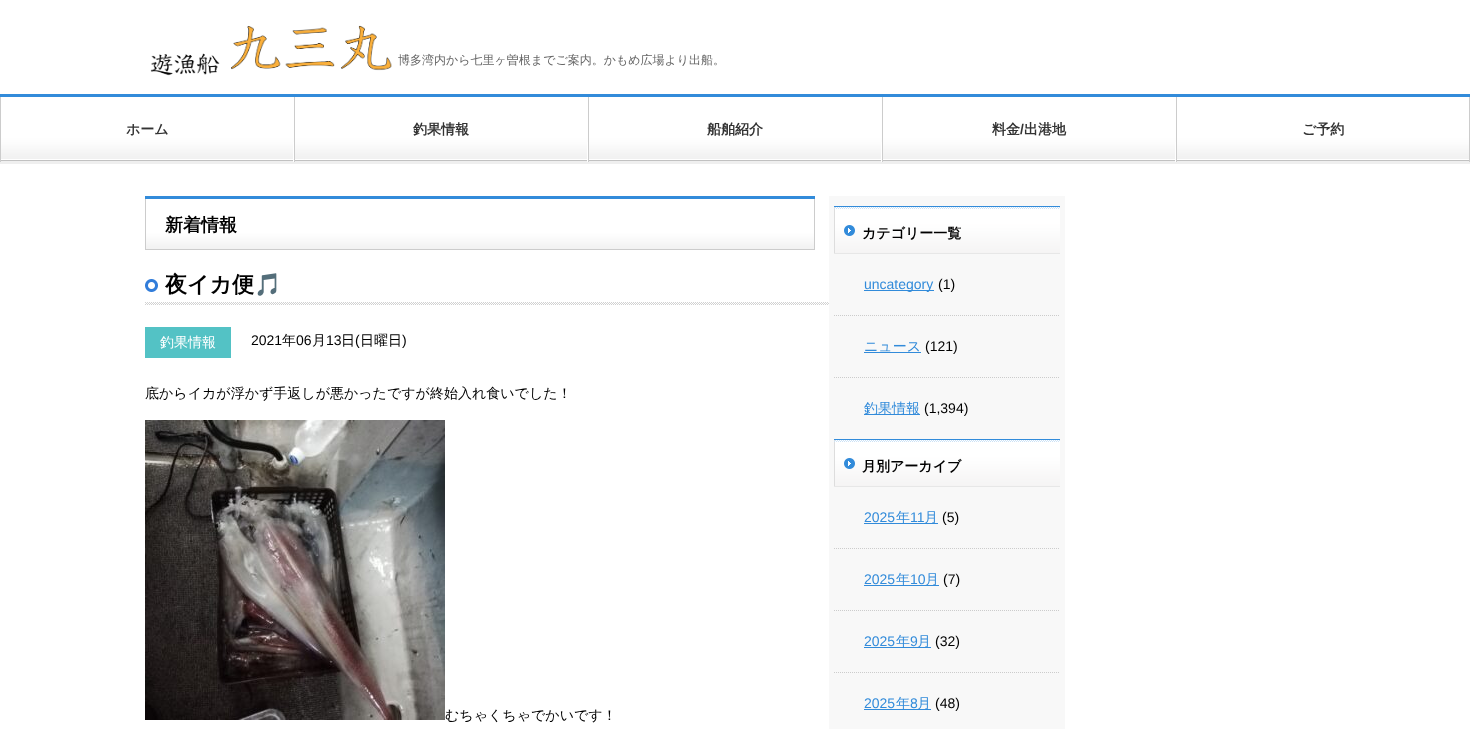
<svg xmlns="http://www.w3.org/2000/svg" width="1470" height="729">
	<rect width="100%" height="100%" fill="#FFFFFF" />
	<image x="150" y="25" width="242" height="51" href="assets/img1.png" />
	<text x="398" y="64" font-family="WenQuanYi Zen Hei" font-size="12" font-weight="500" fill="#666666">博多湾内から七里ヶ曽根までご案内。かもめ広場より出船。</text>
	<image x="0" y="94" width="1470" height="70" href="assets/img2.png" />
	<rect x="293" y="142" width="1" height="20" fill="#FFFFFF" />
	<rect x="0" y="97" width="1" height="65" fill="#CCCCCC" />
	<text x="126" y="134" font-family="WenQuanYi Zen Hei" font-size="14" font-weight="700" fill="#333333">ホーム</text>
	<rect x="587" y="142" width="1" height="20" fill="#FFFFFF" />
	<rect x="294" y="97" width="1" height="65" fill="#CCCCCC" />
	<text x="413" y="134" font-family="WenQuanYi Zen Hei" font-size="14" font-weight="700" fill="#333333">釣果情報</text>
	<rect x="881" y="142" width="1" height="20" fill="#FFFFFF" />
	<rect x="588" y="97" width="1" height="65" fill="#CCCCCC" />
	<text x="707" y="134" font-family="WenQuanYi Zen Hei" font-size="14" font-weight="700" fill="#333333">船舶紹介</text>
	<rect x="1175" y="142" width="1" height="20" fill="#FFFFFF" />
	<rect x="882" y="97" width="1" height="65" fill="#CCCCCC" />
	<text x="992" y="134" font-family="WenQuanYi Zen Hei" font-size="14" font-weight="700" fill="#333333">料金</text>
	<text x="1020" y="134" font-family="Liberation Sans" font-size="14" font-weight="700" fill="#333333">/</text>
	<text x="1024" y="134" font-family="WenQuanYi Zen Hei" font-size="14" font-weight="700" fill="#333333">出港地</text>
	<rect x="1469" y="97" width="1" height="65" fill="#CCCCCC" />
	<rect x="1176" y="97" width="1" height="65" fill="#CCCCCC" />
	<text x="1302" y="134" font-family="WenQuanYi Zen Hei" font-size="14" font-weight="700" fill="#333333">ご予約</text>
	<image x="145" y="196" width="670" height="54" href="assets/img3.png" />
	<text x="165" y="231" font-family="WenQuanYi Zen Hei" font-size="18" font-weight="700" fill="#000000">新着情報</text>
	<image x="145" y="302" width="684" height="3" href="assets/img4.png" />
	<image x="145" y="279" width="13" height="13" href="assets/img5.png" />
	<text x="165" y="292" font-family="WenQuanYi Zen Hei" font-size="22" font-weight="700" fill="#000000">夜イカ便</text>
	<text x="254" y="292" font-family="Noto Color Emoji" font-size="22" font-weight="700" fill="#000000">🎵</text>
	<rect x="145" y="327" width="86" height="31" fill="#53C2C5" />
	<text x="160" y="347" font-family="WenQuanYi Zen Hei" font-size="14" font-weight="500" fill="#FFFFFF">釣果情報</text>
	<text x="251" y="345" font-family="Liberation Sans" font-size="14" fill="#000000">2021</text>
	<text x="282" y="345" font-family="WenQuanYi Zen Hei" font-size="14" font-weight="500" fill="#000000">年</text>
	<text x="296" y="345" font-family="Liberation Sans" font-size="14" fill="#000000">06</text>
	<text x="312" y="345" font-family="WenQuanYi Zen Hei" font-size="14" font-weight="500" fill="#000000">月</text>
	<text x="326" y="345" font-family="Liberation Sans" font-size="14" fill="#000000">13</text>
	<text x="341" y="345" font-family="WenQuanYi Zen Hei" font-size="14" font-weight="500" fill="#000000">日</text>
	<text x="355" y="345" font-family="Liberation Sans" font-size="14" fill="#000000">(</text>
	<text x="360" y="345" font-family="WenQuanYi Zen Hei" font-size="14" font-weight="500" fill="#000000">日曜日</text>
	<text x="402" y="345" font-family="Liberation Sans" font-size="14" fill="#000000">)</text>
	<text x="145" y="398" font-family="WenQuanYi Zen Hei" font-size="14" font-weight="500" fill="#000000">底からイカが浮かず手返しが悪かったですが終始入れ食いでした！</text>
	<image x="145" y="420" width="300" height="300" href="assets/img6.png" />
	<text x="445" y="720" font-family="WenQuanYi Zen Hei" font-size="14" font-weight="500" fill="#000000">むちゃくちゃでかいです！</text>
	<rect x="829" y="196" width="236" height="533" fill="#F8F8F8" />
	<image x="834" y="206" width="226" height="48" href="assets/img7.png" />
	<text x="862" y="238" font-family="WenQuanYi Zen Hei" font-size="14" font-weight="700" fill="#000000">カテゴリー一覧</text>
	<path d="M834 315.5H1060" fill="none" stroke="#CCCCCC" stroke-dasharray="1 1" />
	<rect x="864" y="290" width="70" height="1" fill="#328BDA" />
	<text x="864" y="289" font-family="Liberation Sans" font-size="14" fill="#328BDA">uncategory</text>
	<text x="938" y="289" font-family="Liberation Sans" font-size="14" fill="#000000">(1)</text>
	<path d="M834 377.5H1060" fill="none" stroke="#CCCCCC" stroke-dasharray="1 1" />
	<text x="864" y="351" font-family="WenQuanYi Zen Hei" font-size="14" font-weight="500" fill="#328BDA">ニュース</text>
	<rect x="864" y="352" width="57" height="1" fill="#328BDA" />
	<text x="925" y="351" font-family="Liberation Sans" font-size="14" fill="#000000">(121)</text>
	<rect x="864" y="414" width="56" height="1" fill="#328BDA" />
	<text x="864" y="413" font-family="WenQuanYi Zen Hei" font-size="14" font-weight="500" fill="#328BDA">釣果情報</text>
	<text x="924" y="413" font-family="Liberation Sans" font-size="14" fill="#000000">(1,394)</text>
	<image x="834" y="439" width="226" height="48" href="assets/img7.png" />
	<text x="862" y="471" font-family="WenQuanYi Zen Hei" font-size="14" font-weight="700" fill="#000000">月別アーカイブ</text>
	<path d="M834 548.5H1060" fill="none" stroke="#CCCCCC" stroke-dasharray="1 1" />
	<text x="864" y="522" font-family="Liberation Sans" font-size="14" fill="#328BDA">2025</text>
	<rect x="864" y="523" width="74" height="1" fill="#328BDA" />
	<text x="896" y="522" font-family="WenQuanYi Zen Hei" font-size="14" font-weight="500" fill="#328BDA">年</text>
	<text x="910" y="522" font-family="Liberation Sans" font-size="14" fill="#328BDA">11</text>
	<text x="924" y="522" font-family="WenQuanYi Zen Hei" font-size="14" font-weight="500" fill="#328BDA">月</text>
	<text x="942" y="522" font-family="Liberation Sans" font-size="14" fill="#000000">(5)</text>
	<path d="M834 610.5H1060" fill="none" stroke="#CCCCCC" stroke-dasharray="1 1" />
	<text x="864" y="584" font-family="Liberation Sans" font-size="14" fill="#328BDA">2025</text>
	<rect x="864" y="585" width="75" height="1" fill="#328BDA" />
	<text x="896" y="584" font-family="WenQuanYi Zen Hei" font-size="14" font-weight="500" fill="#328BDA">年</text>
	<text x="910" y="584" font-family="Liberation Sans" font-size="14" fill="#328BDA">10</text>
	<text x="925" y="584" font-family="WenQuanYi Zen Hei" font-size="14" font-weight="500" fill="#328BDA">月</text>
	<text x="943" y="584" font-family="Liberation Sans" font-size="14" fill="#000000">(7)</text>
	<path d="M834 672.5H1060" fill="none" stroke="#CCCCCC" stroke-dasharray="1 1" />
	<text x="864" y="646" font-family="Liberation Sans" font-size="14" fill="#328BDA">2025</text>
	<rect x="864" y="647" width="67" height="1" fill="#328BDA" />
	<text x="896" y="646" font-family="WenQuanYi Zen Hei" font-size="14" font-weight="500" fill="#328BDA">年</text>
	<text x="910" y="646" font-family="Liberation Sans" font-size="14" fill="#328BDA">9</text>
	<text x="917" y="646" font-family="WenQuanYi Zen Hei" font-size="14" font-weight="500" fill="#328BDA">月</text>
	<text x="935" y="646" font-family="Liberation Sans" font-size="14" fill="#000000">(32)</text>
	<text x="864" y="708" font-family="Liberation Sans" font-size="14" fill="#328BDA">2025</text>
	<rect x="864" y="709" width="67" height="1" fill="#328BDA" />
	<text x="896" y="708" font-family="WenQuanYi Zen Hei" font-size="14" font-weight="500" fill="#328BDA">年</text>
	<text x="910" y="708" font-family="Liberation Sans" font-size="14" fill="#328BDA">8</text>
	<text x="917" y="708" font-family="WenQuanYi Zen Hei" font-size="14" font-weight="500" fill="#328BDA">月</text>
	<text x="935" y="708" font-family="Liberation Sans" font-size="14" fill="#000000">(48)</text>
</svg>
